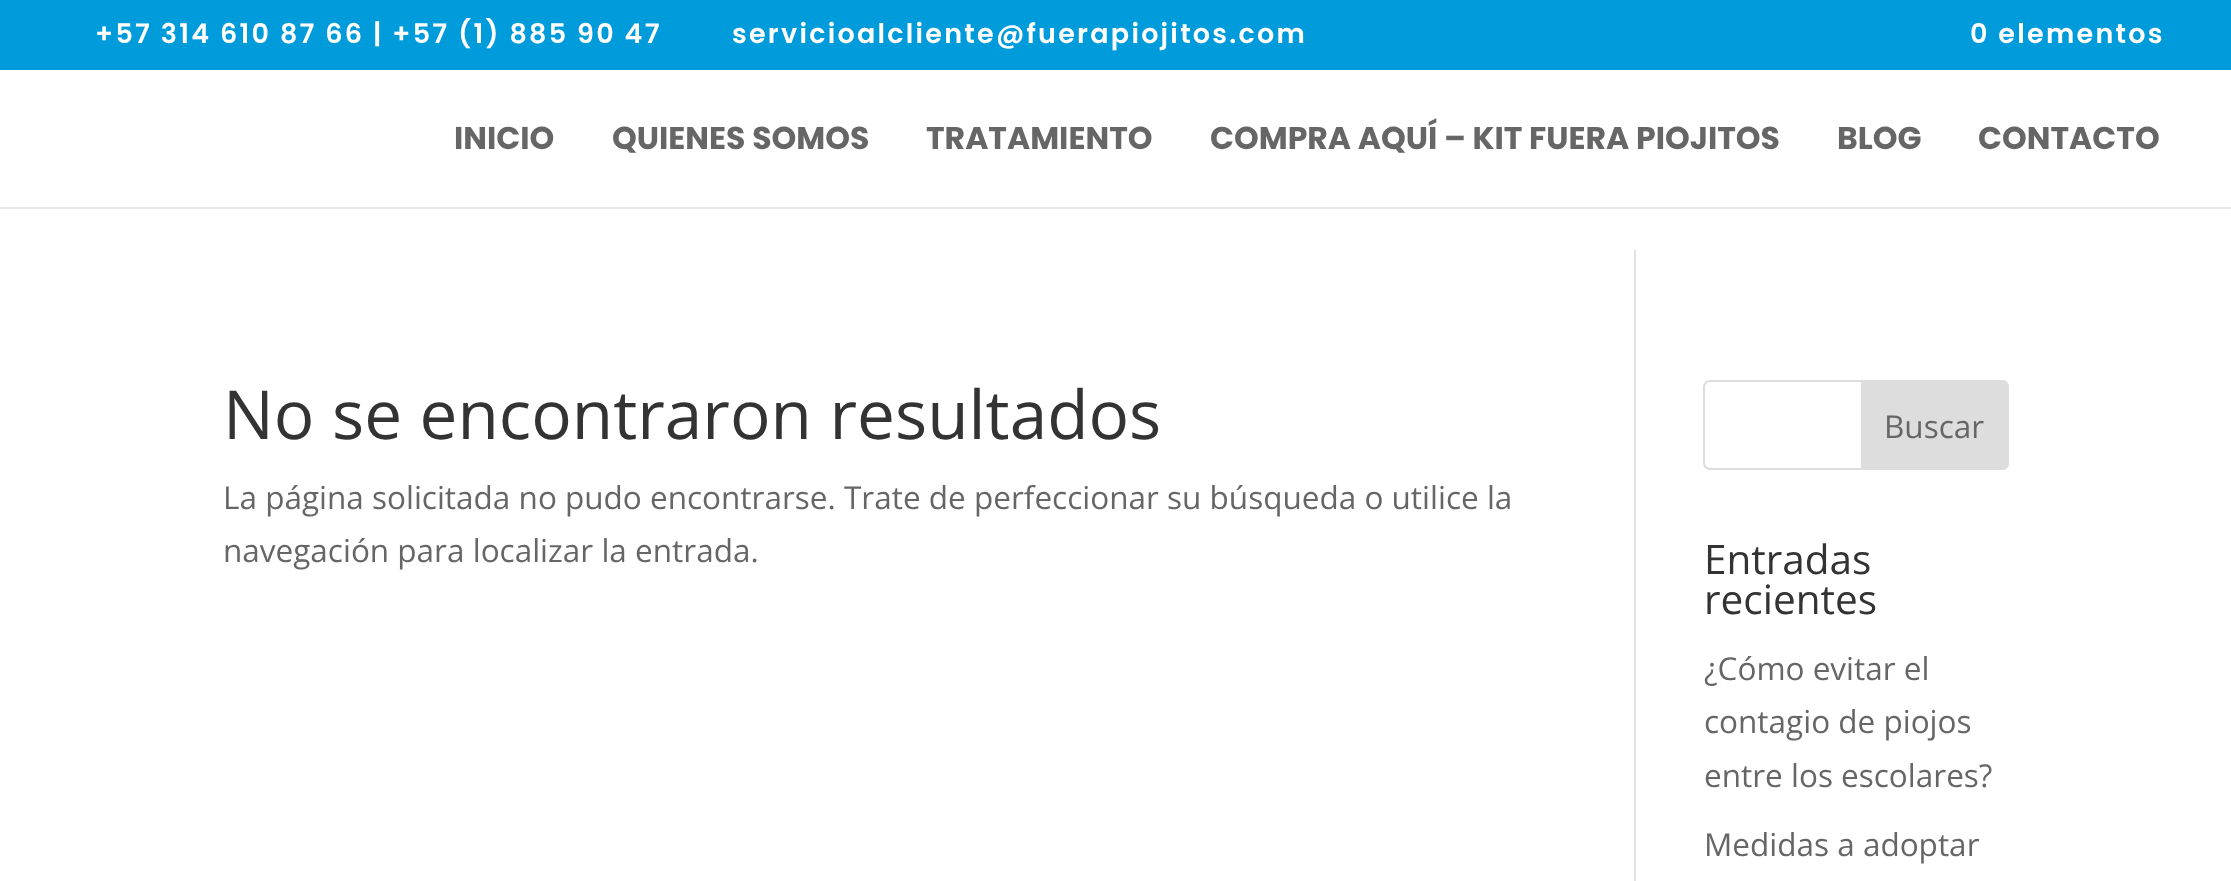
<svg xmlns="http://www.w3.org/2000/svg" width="2231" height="881">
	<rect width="100%" height="100%" fill="#FFFFFF" />
	<rect x="0" y="0" width="2231" height="70" fill="#009BDB" />
	<g font-family="Poppins" font-size="27" font-weight="600" letter-spacing="2.25" fill="#FFFFFF">
		<text x="95" y="43">+57 314 610 87 66 | +57 (1) 885 90 47</text>
		<text x="732" y="43">servicioalcliente@fuerapiojitos.com</text>
		<text x="1970" y="43">0 elementos</text>
	</g>
	<rect x="0" y="207" width="2231" height="2" fill="#E6E6E6" />
	<g font-family="Poppins" font-size="31.5" font-weight="700" fill="#666666">
		<text x="454" y="149">INICIO</text>
		<text x="612" y="149">QUIENES SOMOS</text>
		<text x="926" y="149">TRATAMIENTO</text>
		<text x="1210" y="149">COMPRA AQUÍ – KIT FUERA PIOJITOS</text>
		<text x="1837" y="149">BLOG</text>
		<text x="1978" y="149">CONTACTO</text>
	</g>
	<rect x="1634" y="250" width="2" height="631" fill="#E2E2E2" />
	<text x="223" y="439" font-family="Open Sans" font-size="67.5" fill="#333333">No se encontraron resultados</text>
	<g font-family="Open Sans" font-size="31.5" fill="#666666">
		<text x="223" y="509">La página solicitada no pudo encontrarse. Trate de perfeccionar su búsqueda o utilice la</text>
		<text x="223" y="562">navegación para localizar la entrada.</text>
	</g>
	<rect x="1704" y="381" width="304" height="88" rx="6" fill="none" stroke="#DDDDDD" stroke-width="2" />
	<path d="M1862 381H2002C2005.5 381 2008 383.5 2008 387V463C2008 466.5 2005.5 469 2002 469H1862Z" fill="#DDDDDD" stroke="#DDDDDD" stroke-width="2" />
	<text x="1884" y="438" font-family="Open Sans" font-size="31.5" fill="#666666">Buscar</text>
	<g font-family="Open Sans" font-size="40.5" fill="#333333">
		<text x="1704" y="574">Entradas</text>
		<text x="1704" y="614">recientes</text>
	</g>
	<g font-family="Open Sans" font-size="31.5" fill="#666666">
		<text x="1704" y="680">¿Cómo evitar el</text>
		<text x="1704" y="733">contagio de piojos</text>
		<text x="1704" y="787">entre los escolares?</text>
		<text x="1704" y="856">Medidas a adoptar</text>
	</g>
</svg>
